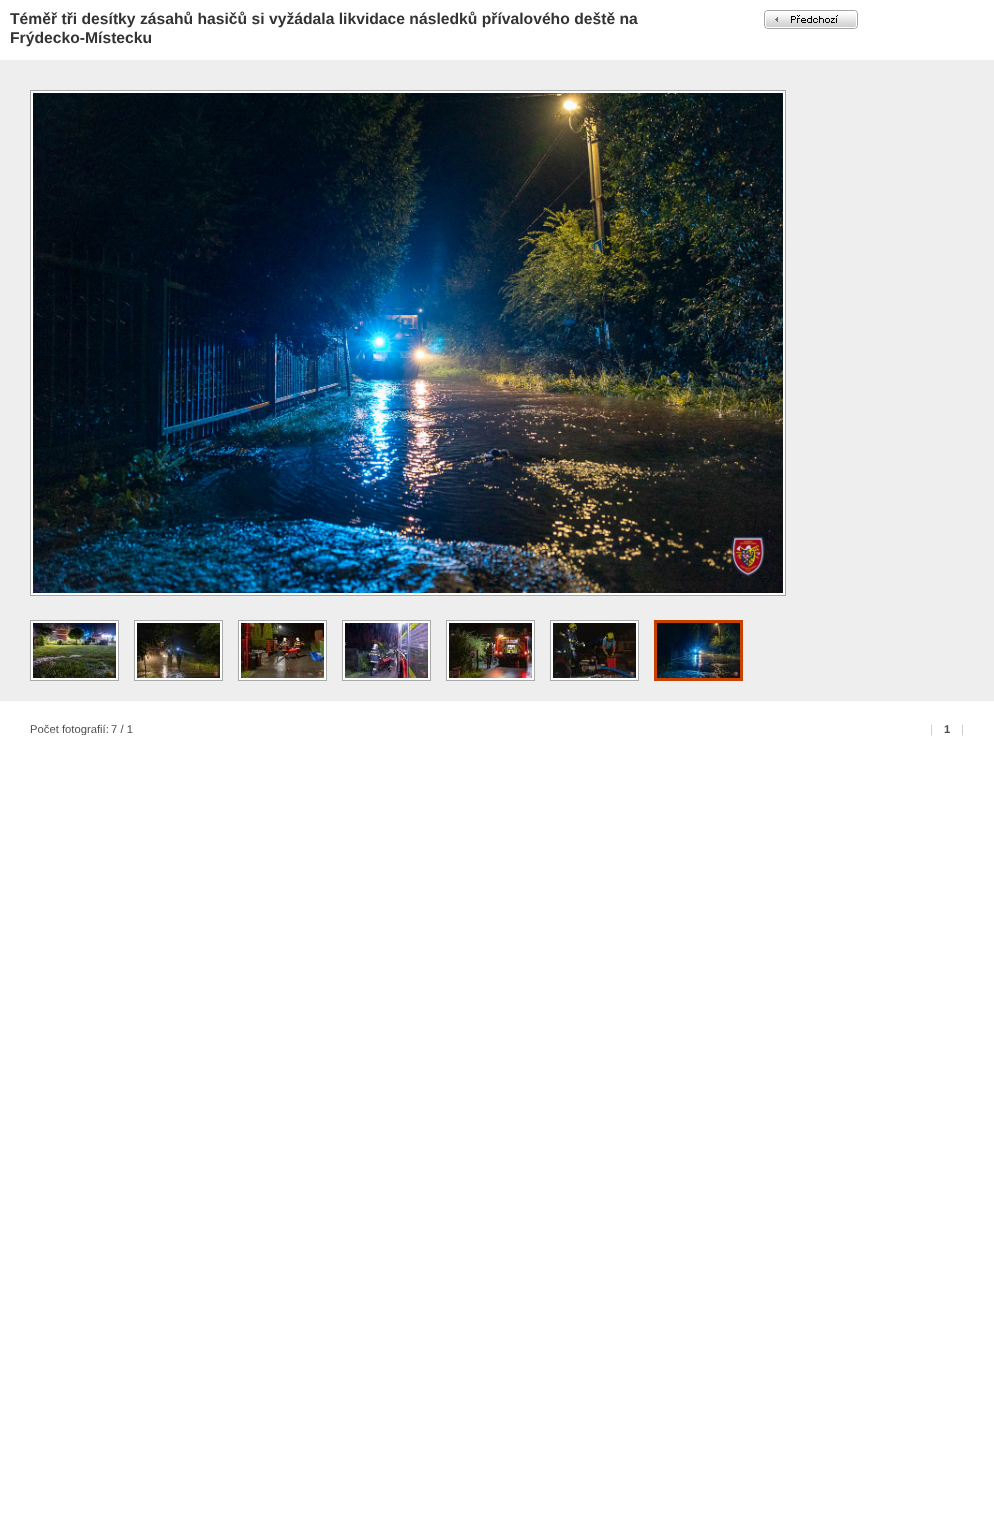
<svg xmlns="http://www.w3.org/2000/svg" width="994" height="1526">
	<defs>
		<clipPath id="clip1"><rect x="0" y="723" width="994" height="12" /></clipPath>
	</defs>
	<rect width="100%" height="100%" fill="#FFFFFF" />
	<rect x="0" y="60" width="994" height="641" fill="#EEEEEE" />
	<image x="764" y="10" width="94" height="19" href="assets/img1.png" />
	<rect x="30.5" y="90.5" width="755" height="505" fill="#FFFFFF" stroke="#A5A5A5" />
	<image x="33" y="93" width="750" height="500" href="assets/img2.png" />
	<rect x="30.5" y="620.5" width="88" height="60" fill="#FFFFFF" stroke="#A9A9A9" />
	<image x="33" y="623" width="83" height="55" href="assets/img3.png" />
	<rect x="134.5" y="620.5" width="88" height="60" fill="#FFFFFF" stroke="#A9A9A9" />
	<image x="137" y="623" width="83" height="55" href="assets/img4.png" />
	<rect x="238.5" y="620.5" width="88" height="60" fill="#FFFFFF" stroke="#A9A9A9" />
	<image x="241" y="623" width="83" height="55" href="assets/img5.png" />
	<rect x="342.5" y="620.5" width="88" height="60" fill="#FFFFFF" stroke="#A9A9A9" />
	<image x="345" y="623" width="83" height="55" href="assets/img6.png" />
	<rect x="446.5" y="620.5" width="88" height="60" fill="#FFFFFF" stroke="#A9A9A9" />
	<image x="449" y="623" width="83" height="55" href="assets/img7.png" />
	<rect x="550.5" y="620.5" width="88" height="60" fill="#FFFFFF" stroke="#A9A9A9" />
	<image x="553" y="623" width="83" height="55" href="assets/img8.png" />
	<rect x="655.5" y="621.5" width="86" height="58" fill="none" stroke="#C74200" stroke-width="3" />
	<image x="657" y="623" width="83" height="55" href="assets/img9.png" />
	<g font-family="Liberation Sans" font-size="15.7" font-weight="700" fill="#333333">
		<text x="10" y="24">Téměř tři desítky zásahů hasičů si vyžádala likvidace následků přívalového deště na</text>
		<text x="10" y="43">Frýdecko-Místecku</text>
	</g>
	<g clip-path="url(#clip1)">
		<text x="30" y="733" font-family="Liberation Sans" font-size="11.25" fill="#4F4F4F">Počet fotografií:</text>
	</g>
	<text x="111" y="733" font-family="Liberation Sans" font-size="11.25" fill="#4F4F4F">7 / 1</text>
	<text x="930" y="733" font-family="Liberation Sans" font-size="11.25" fill="#CCCCCC">|</text>
	<text x="944" y="733" font-family="Liberation Sans" font-size="11.25" font-weight="700" fill="#4F4F4F">1</text>
	<text x="961" y="733" font-family="Liberation Sans" font-size="11.25" fill="#CCCCCC">|</text>
</svg>
